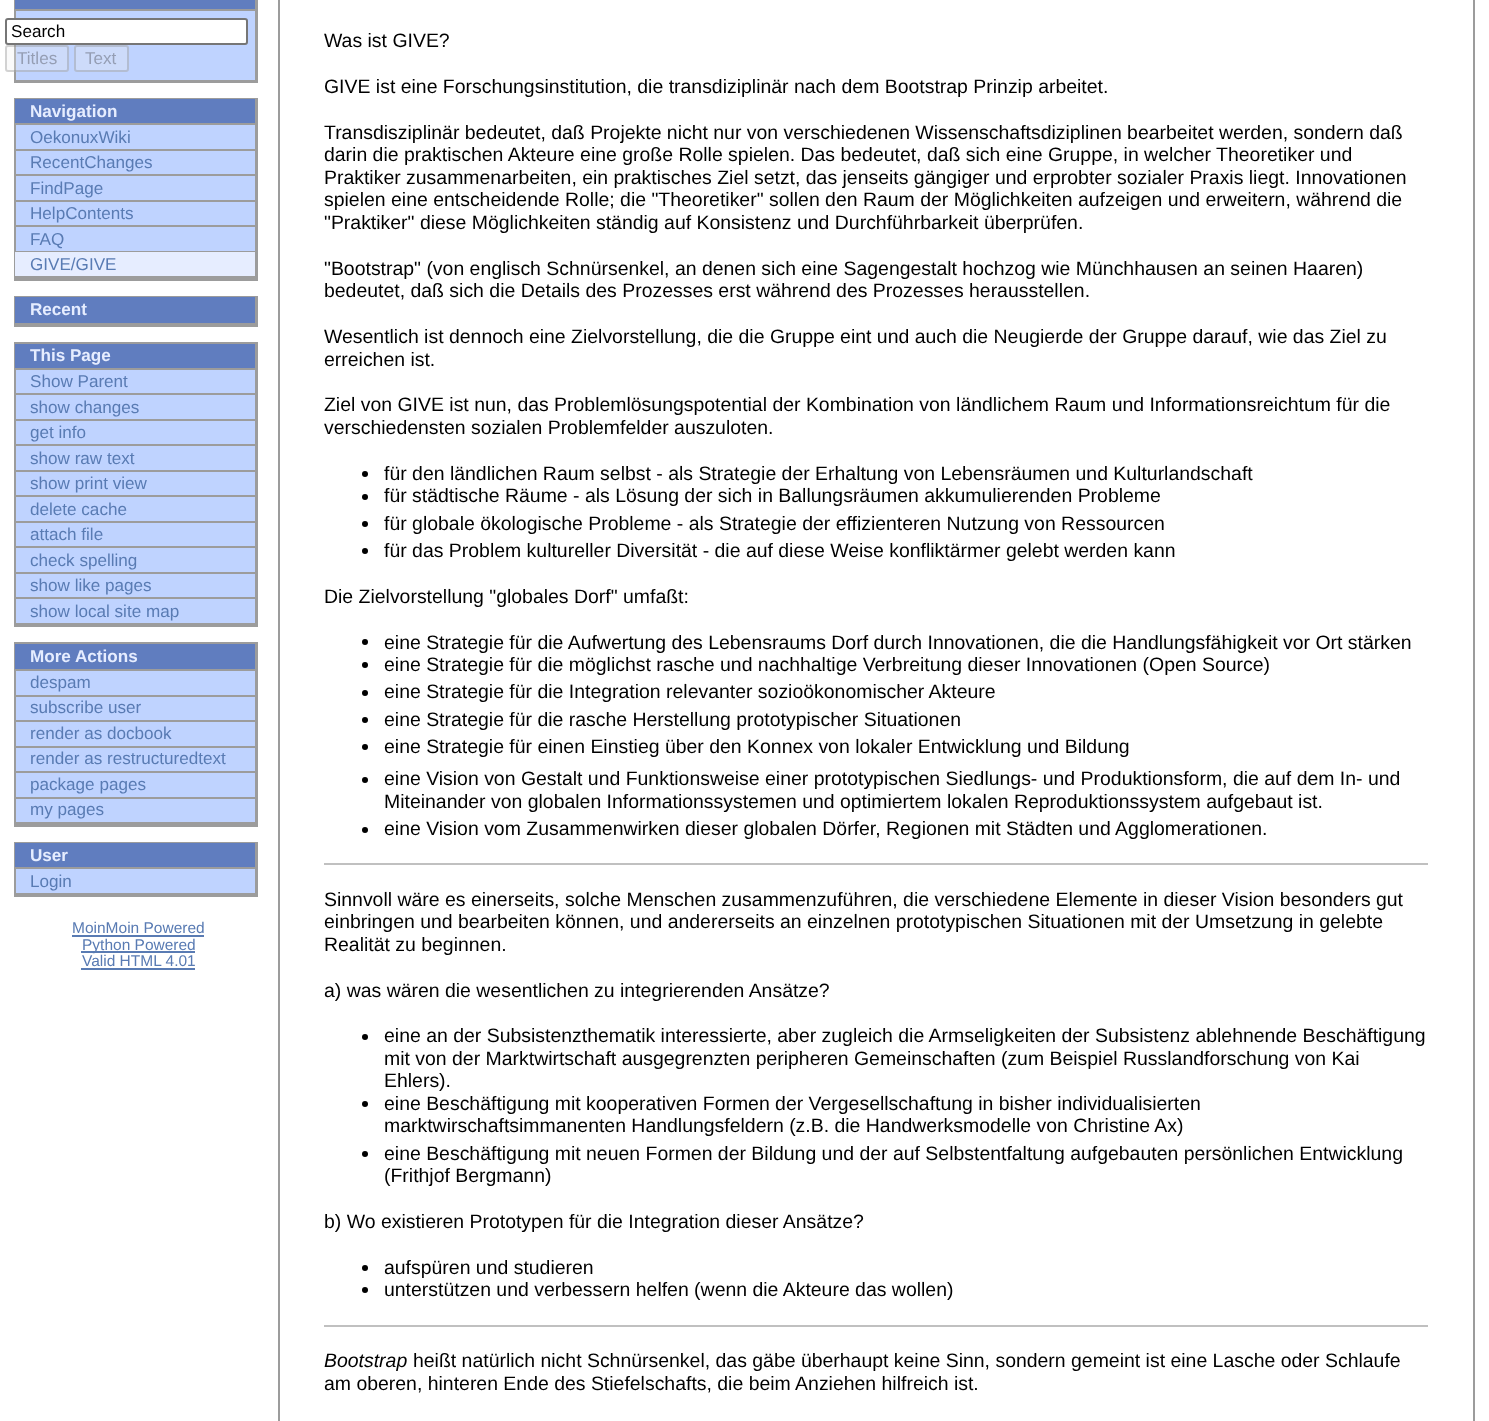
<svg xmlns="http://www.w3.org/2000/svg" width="1489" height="1421">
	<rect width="100%" height="100%" fill="#FFFFFF" />
	<rect x="16" y="11" width="239" height="69" fill="#BFD3FF" />
	<rect x="255" y="0" width="3" height="83" fill="#9C9C9C" />
	<rect x="14" y="80" width="244" height="3" fill="#9C9C9C" />
	<rect x="14" y="0" width="2" height="83" fill="#9C9C9C" />
	<rect x="15" y="0" width="240" height="9" fill="#607DBF" />
	<rect x="15" y="9" width="240" height="2" fill="#9C9C9C" />
	<rect x="6" y="19" width="241" height="25" rx="2" fill="#FFFFFF" stroke="#767676" stroke-width="2" />
	<text x="11" y="37" font-family="Liberation Sans" font-size="17.1" fill="#000000">Search</text>
	<rect x="5" y="45" width="64" height="27" rx="3" fill="#EFEFEF" fill-opacity="0.3" />
	<rect x="6" y="46" width="62" height="25" rx="2" fill="none" stroke="#767676" stroke-opacity="0.3" stroke-width="2" />
	<text x="17" y="64" font-family="Liberation Sans" font-size="17.1" fill="#959EB4">Titles</text>
	<rect x="74" y="45" width="55" height="27" rx="3" fill="#CDDBFA" />
	<rect x="75" y="46" width="53" height="25" rx="2" fill="none" stroke="#767676" stroke-opacity="0.3" stroke-width="2" />
	<text x="85" y="64" font-family="Liberation Sans" font-size="17.1" fill="#959EB4">Text</text>
	<rect x="16" y="125" width="239" height="126" fill="#BFD3FF" />
	<rect x="14" y="98" width="244" height="1" fill="#9C9C9C" />
	<rect x="255" y="98" width="3" height="183" fill="#9C9C9C" />
	<rect x="14" y="278" width="244" height="3" fill="#9C9C9C" />
	<rect x="14" y="98" width="2" height="183" fill="#9C9C9C" />
	<rect x="15" y="99" width="240" height="24" fill="#607DBF" />
	<rect x="15" y="123" width="240" height="2" fill="#9C9C9C" />
	<text x="30" y="117" font-family="Liberation Sans" font-size="17.1" font-weight="700" fill="#E6EDFF">Navigation</text>
	<rect x="15" y="149" width="240" height="2" fill="#9C9C9C" />
	<text x="30" y="143" font-family="Liberation Sans" font-size="17.1" fill="#597BB3">OekonuxWiki</text>
	<rect x="15" y="174" width="240" height="2" fill="#9C9C9C" />
	<text x="30" y="168" font-family="Liberation Sans" font-size="17.1" fill="#597BB3">RecentChanges</text>
	<rect x="15" y="200" width="240" height="2" fill="#9C9C9C" />
	<text x="30" y="194" font-family="Liberation Sans" font-size="17.1" fill="#597BB3">FindPage</text>
	<rect x="15" y="225" width="240" height="2" fill="#9C9C9C" />
	<text x="30" y="219" font-family="Liberation Sans" font-size="17.1" fill="#597BB3">HelpContents</text>
	<rect x="15" y="251" width="240" height="1" fill="#9C9C9C" />
	<text x="30" y="245" font-family="Liberation Sans" font-size="17.1" fill="#597BB3">FAQ</text>
	<rect x="15" y="252" width="240" height="24" fill="#E6EDFF" />
	<rect x="15" y="276" width="240" height="2" fill="#9C9C9C" />
	<text x="30" y="270" font-family="Liberation Sans" font-size="17.1" fill="#597BB3">GIVE/GIVE</text>
	<rect x="14" y="296" width="244" height="1" fill="#9C9C9C" />
	<rect x="255" y="296" width="3" height="31" fill="#9C9C9C" />
	<rect x="14" y="324" width="244" height="3" fill="#9C9C9C" />
	<rect x="14" y="296" width="2" height="31" fill="#9C9C9C" />
	<rect x="15" y="297" width="240" height="26" fill="#607DBF" />
	<rect x="15" y="323" width="240" height="1" fill="#9C9C9C" />
	<text x="30" y="315" font-family="Liberation Sans" font-size="17.1" font-weight="700" fill="#E6EDFF">Recent</text>
	<rect x="16" y="370" width="239" height="253" fill="#BFD3FF" />
	<rect x="14" y="342" width="244" height="2" fill="#9C9C9C" />
	<rect x="255" y="342" width="3" height="285" fill="#9C9C9C" />
	<rect x="14" y="624" width="244" height="3" fill="#9C9C9C" />
	<rect x="14" y="342" width="2" height="285" fill="#9C9C9C" />
	<rect x="15" y="344" width="240" height="24" fill="#607DBF" />
	<rect x="15" y="368" width="240" height="2" fill="#9C9C9C" />
	<text x="30" y="361" font-family="Liberation Sans" font-size="17.1" font-weight="700" fill="#E6EDFF">This Page</text>
	<rect x="15" y="393" width="240" height="2" fill="#9C9C9C" />
	<text x="30" y="387" font-family="Liberation Sans" font-size="17.1" fill="#597BB3">Show Parent</text>
	<rect x="15" y="419" width="240" height="2" fill="#9C9C9C" />
	<text x="30" y="413" font-family="Liberation Sans" font-size="17.1" fill="#597BB3">show changes</text>
	<rect x="15" y="444" width="240" height="2" fill="#9C9C9C" />
	<text x="30" y="438" font-family="Liberation Sans" font-size="17.1" fill="#597BB3">get info</text>
	<rect x="15" y="470" width="240" height="2" fill="#9C9C9C" />
	<text x="30" y="464" font-family="Liberation Sans" font-size="17.1" fill="#597BB3">show raw text</text>
	<rect x="15" y="495" width="240" height="2" fill="#9C9C9C" />
	<text x="30" y="489" font-family="Liberation Sans" font-size="17.1" fill="#597BB3">show print view</text>
	<rect x="15" y="521" width="240" height="2" fill="#9C9C9C" />
	<text x="30" y="515" font-family="Liberation Sans" font-size="17.1" fill="#597BB3">delete cache</text>
	<rect x="15" y="546" width="240" height="2" fill="#9C9C9C" />
	<text x="30" y="540" font-family="Liberation Sans" font-size="17.1" fill="#597BB3">attach file</text>
	<rect x="15" y="572" width="240" height="2" fill="#9C9C9C" />
	<text x="30" y="566" font-family="Liberation Sans" font-size="17.1" fill="#597BB3">check spelling</text>
	<rect x="15" y="597" width="240" height="2" fill="#9C9C9C" />
	<text x="30" y="591" font-family="Liberation Sans" font-size="17.1" fill="#597BB3">show like pages</text>
	<rect x="15" y="623" width="240" height="1" fill="#9C9C9C" />
	<text x="30" y="617" font-family="Liberation Sans" font-size="17.1" fill="#597BB3">show local site map</text>
	<rect x="16" y="671" width="239" height="151" fill="#BFD3FF" />
	<rect x="14" y="642" width="244" height="2" fill="#9C9C9C" />
	<rect x="255" y="642" width="3" height="185" fill="#9C9C9C" />
	<rect x="14" y="824" width="244" height="3" fill="#9C9C9C" />
	<rect x="14" y="642" width="2" height="185" fill="#9C9C9C" />
	<rect x="15" y="644" width="240" height="25" fill="#607DBF" />
	<rect x="15" y="669" width="240" height="2" fill="#9C9C9C" />
	<text x="30" y="662" font-family="Liberation Sans" font-size="17.1" font-weight="700" fill="#E6EDFF">More Actions</text>
	<rect x="15" y="695" width="240" height="2" fill="#9C9C9C" />
	<text x="30" y="688" font-family="Liberation Sans" font-size="17.1" fill="#597BB3">despam</text>
	<rect x="15" y="720" width="240" height="2" fill="#9C9C9C" />
	<text x="30" y="713" font-family="Liberation Sans" font-size="17.1" fill="#597BB3">subscribe user</text>
	<rect x="15" y="746" width="240" height="2" fill="#9C9C9C" />
	<text x="30" y="739" font-family="Liberation Sans" font-size="17.1" fill="#597BB3">render as docbook</text>
	<rect x="15" y="771" width="240" height="2" fill="#9C9C9C" />
	<text x="30" y="764" font-family="Liberation Sans" font-size="17.1" fill="#597BB3">render as restructuredtext</text>
	<rect x="15" y="797" width="240" height="2" fill="#9C9C9C" />
	<text x="30" y="790" font-family="Liberation Sans" font-size="17.1" fill="#597BB3">package pages</text>
	<rect x="15" y="822" width="240" height="2" fill="#9C9C9C" />
	<text x="30" y="815" font-family="Liberation Sans" font-size="17.1" fill="#597BB3">my pages</text>
	<rect x="16" y="869" width="239" height="24" fill="#BFD3FF" />
	<rect x="14" y="842" width="244" height="1" fill="#9C9C9C" />
	<rect x="255" y="842" width="3" height="55" fill="#9C9C9C" />
	<rect x="14" y="894" width="244" height="3" fill="#9C9C9C" />
	<rect x="14" y="842" width="2" height="55" fill="#9C9C9C" />
	<rect x="15" y="843" width="240" height="24" fill="#607DBF" />
	<rect x="15" y="867" width="240" height="2" fill="#9C9C9C" />
	<text x="30" y="861" font-family="Liberation Sans" font-size="17.1" font-weight="700" fill="#E6EDFF">User</text>
	<rect x="15" y="893" width="240" height="1" fill="#9C9C9C" />
	<text x="30" y="887" font-family="Liberation Sans" font-size="17.1" fill="#597BB3">Login</text>
	<text x="72" y="933" font-family="Liberation Sans" font-size="15.5" fill="#597BB3">MoinMoin Powered</text>
	<rect x="72" y="935" width="132" height="2" fill="#597BB3" />
	<rect x="81" y="951" width="114" height="2" fill="#597BB3" />
	<g font-family="Liberation Sans" font-size="15.5" fill="#597BB3">
		<text x="82" y="950">Python Powered</text>
		<text x="82" y="966">Valid HTML 4.01</text>
	</g>
	<rect x="81" y="968" width="114" height="2" fill="#597BB3" />
	<rect x="1473" y="0" width="2" height="1421" fill="#9C9C9C" />
	<rect x="278" y="0" width="2" height="1421" fill="#9C9C9C" />
	<g font-family="Liberation Sans" font-size="19.45" fill="#000000">
		<text x="324" y="47">Was ist GIVE?</text>
		<text x="324" y="93">GIVE ist eine Forschungsinstitution, die transdiziplinär nach dem Bootstrap Prinzip arbeitet.</text>
		<text x="324" y="139">Transdisziplinär bedeutet, daß Projekte nicht nur von verschiedenen Wissenschaftsdiziplinen bearbeitet werden, sondern daß</text>
		<text x="324" y="161">darin die praktischen Akteure eine große Rolle spielen. Das bedeutet, daß sich eine Gruppe, in welcher Theoretiker und</text>
		<text x="324" y="184">Praktiker zusammenarbeiten, ein praktisches Ziel setzt, das jenseits gängiger und erprobter sozialer Praxis liegt. Innovationen</text>
		<text x="324" y="206">spielen eine entscheidende Rolle; die "Theoretiker" sollen den Raum der Möglichkeiten aufzeigen und erweitern, während die</text>
		<text x="324" y="229">"Praktiker" diese Möglichkeiten ständig auf Konsistenz und Durchführbarkeit überprüfen.</text>
		<text x="324" y="275">"Bootstrap" (von englisch Schnürsenkel, an denen sich eine Sagengestalt hochzog wie Münchhausen an seinen Haaren)</text>
		<text x="324" y="297">bedeutet, daß sich die Details des Prozesses erst während des Prozesses herausstellen.</text>
		<text x="324" y="343">Wesentlich ist dennoch eine Zielvorstellung, die die Gruppe eint und auch die Neugierde der Gruppe darauf, wie das Ziel zu</text>
		<text x="324" y="366">erreichen ist.</text>
		<text x="324" y="411">Ziel von GIVE ist nun, das Problemlösungspotential der Kombination von ländlichem Raum und Informationsreichtum für die</text>
		<text x="324" y="434">verschiedensten sozialen Problemfelder auszuloten.</text>
	</g>
	<circle cx="365" cy="474" r="3" fill="#000000" />
	<text x="384" y="480" font-family="Liberation Sans" font-size="19.45" fill="#000000">für den ländlichen Raum selbst - als Strategie der Erhaltung von Lebensräumen und Kulturlandschaft</text>
	<circle cx="365" cy="497" r="3" fill="#000000" />
	<text x="384" y="502" font-family="Liberation Sans" font-size="19.45" fill="#000000">für städtische Räume - als Lösung der sich in Ballungsräumen akkumulierenden Probleme</text>
	<circle cx="365" cy="524" r="3" fill="#000000" />
	<text x="384" y="530" font-family="Liberation Sans" font-size="19.45" fill="#000000">für globale ökologische Probleme - als Strategie der effizienteren Nutzung von Ressourcen</text>
	<circle cx="365" cy="551" r="3" fill="#000000" />
	<g font-family="Liberation Sans" font-size="19.45" fill="#000000">
		<text x="384" y="557">für das Problem kultureller Diversität - die auf diese Weise konfliktärmer gelebt werden kann</text>
		<text x="324" y="603">Die Zielvorstellung "globales Dorf" umfaßt:</text>
	</g>
	<circle cx="365" cy="642" r="3" fill="#000000" />
	<text x="384" y="649" font-family="Liberation Sans" font-size="19.45" fill="#000000">eine Strategie für die Aufwertung des Lebensraums Dorf durch Innovationen, die die Handlungsfähigkeit vor Ort stärken</text>
	<circle cx="365" cy="665" r="3" fill="#000000" />
	<text x="384" y="671" font-family="Liberation Sans" font-size="19.45" fill="#000000">eine Strategie für die möglichst rasche und nachhaltige Verbreitung dieser Innovationen (Open Source)</text>
	<circle cx="365" cy="693" r="3" fill="#000000" />
	<text x="384" y="698" font-family="Liberation Sans" font-size="19.45" fill="#000000">eine Strategie für die Integration relevanter sozioökonomischer Akteure</text>
	<circle cx="365" cy="720" r="3" fill="#000000" />
	<text x="384" y="726" font-family="Liberation Sans" font-size="19.45" fill="#000000">eine Strategie für die rasche Herstellung prototypischer Situationen</text>
	<circle cx="365" cy="747" r="3" fill="#000000" />
	<text x="384" y="753" font-family="Liberation Sans" font-size="19.45" fill="#000000">eine Strategie für einen Einstieg über den Konnex von lokaler Entwicklung und Bildung</text>
	<circle cx="365" cy="780" r="3" fill="#000000" />
	<g font-family="Liberation Sans" font-size="19.45" fill="#000000">
		<text x="384" y="785">eine Vision von Gestalt und Funktionsweise einer prototypischen Siedlungs- und Produktionsform, die auf dem In- und</text>
		<text x="384" y="808">Miteinander von globalen Informationssystemen und optimiertem lokalen Reproduktionssystem aufgebaut ist.</text>
	</g>
	<circle cx="365" cy="830" r="3" fill="#000000" />
	<text x="384" y="835" font-family="Liberation Sans" font-size="19.45" fill="#000000">eine Vision vom Zusammenwirken dieser globalen Dörfer, Regionen mit Städten und Agglomerationen.</text>
	<rect x="324" y="863" width="1104" height="2" fill="#C0C0C0" />
	<g font-family="Liberation Sans" font-size="19.45" fill="#000000">
		<text x="324" y="906">Sinnvoll wäre es einerseits, solche Menschen zusammenzuführen, die verschiedene Elemente in dieser Vision besonders gut</text>
		<text x="324" y="928">einbringen und bearbeiten können, und andererseits an einzelnen prototypischen Situationen mit der Umsetzung in gelebte</text>
		<text x="324" y="951">Realität zu beginnen.</text>
		<text x="324" y="997">a) was wären die wesentlichen zu integrierenden Ansätze?</text>
	</g>
	<circle cx="365" cy="1037" r="3" fill="#000000" />
	<g font-family="Liberation Sans" font-size="19.45" fill="#000000">
		<text x="384" y="1042">eine an der Subsistenzthematik interessierte, aber zugleich die Armseligkeiten der Subsistenz ablehnende Beschäftigung</text>
		<text x="384" y="1065">mit von der Marktwirtschaft ausgegrenzten peripheren Gemeinschaften (zum Beispiel Russlandforschung von Kai</text>
		<text x="384" y="1087">Ehlers).</text>
	</g>
	<circle cx="365" cy="1104" r="3" fill="#000000" />
	<g font-family="Liberation Sans" font-size="19.45" fill="#000000">
		<text x="384" y="1110">eine Beschäftigung mit kooperativen Formen der Vergesellschaftung in bisher individualisierten</text>
		<text x="384" y="1132">marktwirschaftsimmanenten Handlungsfeldern (z.B. die Handwerksmodelle von Christine Ax)</text>
	</g>
	<circle cx="365" cy="1154" r="3" fill="#000000" />
	<g font-family="Liberation Sans" font-size="19.45" fill="#000000">
		<text x="384" y="1160">eine Beschäftigung mit neuen Formen der Bildung und der auf Selbstentfaltung aufgebauten persönlichen Entwicklung</text>
		<text x="384" y="1182">(Frithjof Bergmann)</text>
		<text x="324" y="1228">b) Wo existieren Prototypen für die Integration dieser Ansätze?</text>
	</g>
	<circle cx="365" cy="1268" r="3" fill="#000000" />
	<text x="384" y="1274" font-family="Liberation Sans" font-size="19.45" fill="#000000">aufspüren und studieren</text>
	<circle cx="365" cy="1290" r="3" fill="#000000" />
	<text x="384" y="1296" font-family="Liberation Sans" font-size="19.45" fill="#000000">unterstützen und verbessern helfen (wenn die Akteure das wollen)</text>
	<rect x="324" y="1325" width="1104" height="2" fill="#C0C0C0" />
	<text x="324" y="1367" font-family="Liberation Sans" font-size="19.45" font-style="italic" fill="#000000">Bootstrap</text>
	<g font-family="Liberation Sans" font-size="19.45" fill="#000000">
		<text x="413" y="1367">heißt natürlich nicht Schnürsenkel, das gäbe überhaupt keine Sinn, sondern gemeint ist eine Lasche oder Schlaufe</text>
		<text x="324" y="1390">am oberen, hinteren Ende des Stiefelschafts, die beim Anziehen hilfreich ist.</text>
	</g>
</svg>
